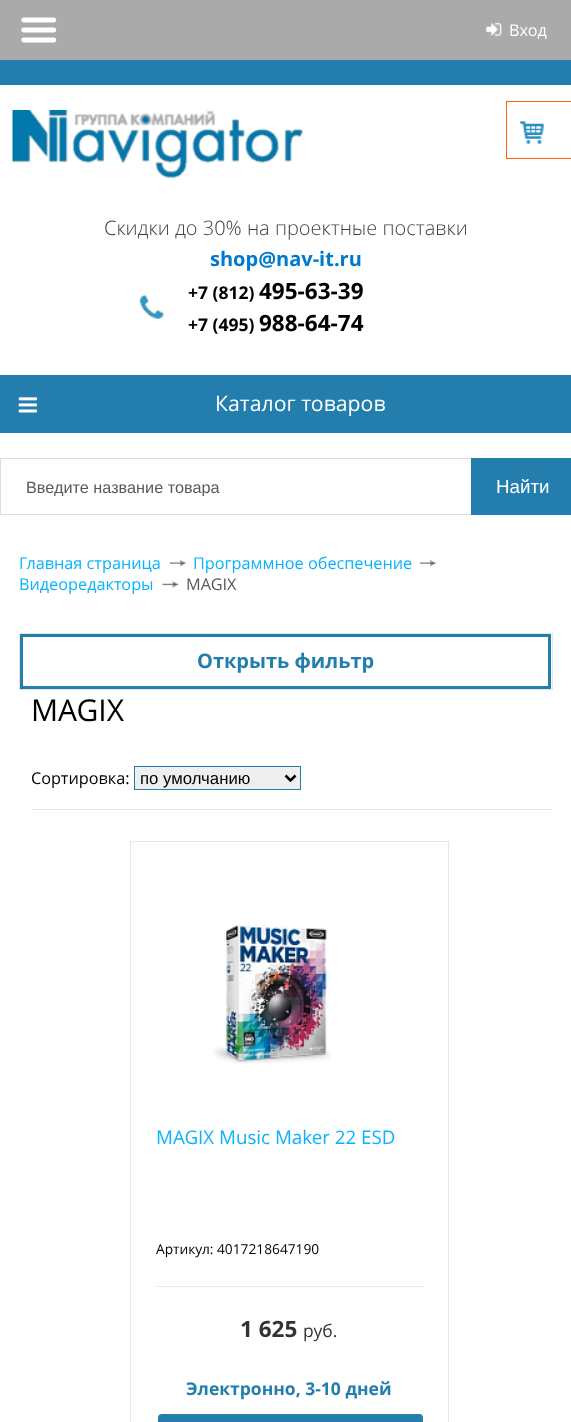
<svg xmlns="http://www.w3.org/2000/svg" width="571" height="1422">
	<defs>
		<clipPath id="clip1"><rect x="26" y="478" width="469" height="18" /></clipPath>
	</defs>
	<rect width="100%" height="100%" fill="#FFFFFF" />
	<rect x="0" y="0" width="571" height="60" fill="#AAAAAA" />
	<image x="21" y="17" width="36" height="26" href="assets/img1.png" />
	<image x="485" y="22" width="17" height="15" href="assets/img2.png" />
	<text x="509" y="36" font-family="Open Sans" font-size="16.25" fill="#FFFFFF">Вход</text>
	<rect x="0" y="60" width="571" height="25" fill="#237EAD" />
	<image x="12" y="110" width="291" height="69" href="assets/img3.png" />
	<text x="104" y="235" font-family="Open Sans" font-size="20" font-weight="300" fill="#3F3F3F">Скидки до 30% на проектные поставки</text>
	<text x="210" y="266" font-family="Open Sans" font-size="20" font-weight="700" fill="#007ACF">shop@nav-it.ru</text>
	<image x="139" y="294" width="25" height="26" href="assets/img4.png" />
	<text x="188" y="299" font-family="Open Sans" font-size="17.5" font-weight="700" fill="#000000">+7 (812)</text>
	<text x="259" y="299" font-family="Open Sans" font-size="22.5" font-weight="700" fill="#000000">495-63-39</text>
	<text x="188" y="331" font-family="Open Sans" font-size="17.5" font-weight="700" fill="#000000">+7 (495)</text>
	<text x="259" y="331" font-family="Open Sans" font-size="22.5" font-weight="700" fill="#000000">988-64-74</text>
	<rect x="506.5" y="101.5" width="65" height="57" fill="none" stroke="#FF5F00" />
	<image x="519" y="121" width="25" height="23" href="assets/img5.png" />
	<rect x="0" y="375" width="571" height="58" fill="#237EAD" />
	<image x="18" y="397" width="19" height="16" href="assets/img6.png" />
	<text x="215" y="411" font-family="Open Sans" font-size="21.25" fill="#FFFFFF">Каталог товаров</text>
	<rect x="0.5" y="458.5" width="570" height="56" fill="none" stroke="#DDDDDD" />
	<g clip-path="url(#clip1)">
		<text x="26" y="493" font-family="Liberation Sans" font-size="16.25" fill="#595959">Введите название товара</text>
	</g>
	<rect x="471" y="458" width="100" height="57" fill="#237EAD" />
	<text x="496" y="493" font-family="Liberation Sans" font-size="18.75" fill="#FFFFFF">Найти</text>
	<text x="19" y="569" font-family="Open Sans" font-size="16.25" fill="#08B2FF">Главная страница</text>
	<image x="170" y="560" width="17" height="7" href="assets/img7.png" />
	<text x="193" y="569" font-family="Open Sans" font-size="16.25" fill="#08B2FF">Программное обеспечение</text>
	<image x="420" y="560" width="17" height="7" href="assets/img8.png" />
	<text x="19" y="590" font-family="Open Sans" font-size="16.25" fill="#08B2FF">Видеоредакторы</text>
	<image x="162" y="581" width="17" height="7" href="assets/img9.png" />
	<text x="186" y="590" font-family="Open Sans" font-size="16.25" fill="#595959">MAGIX</text>
	<rect x="19.5" y="633.5" width="533" height="56" fill="none" stroke="#E6E6E6" />
	<rect x="21.5" y="635.5" width="528" height="52" fill="none" stroke="#237EAD" stroke-width="3" />
	<text x="197" y="668" font-family="Open Sans" font-size="20" font-weight="700" fill="#237EAD">Открыть фильтр</text>
	<text x="31" y="721" font-family="Open Sans" font-size="30" fill="#000000">MAGIX</text>
	<rect x="31" y="809" width="522" height="1" fill="#E6E6E6" />
	<text x="31" y="784" font-family="Open Sans" font-size="16.25" fill="#000000">Сортировка:</text>
	<rect x="134.5" y="766.5" width="166" height="23" fill="#EFEFEF" stroke="#237EAD" />
	<path d="M285.5 775.5L290.5 780.5L295.5 775.5" fill="none" stroke="#000000" stroke-width="2.5" />
	<text x="140" y="784" font-family="Liberation Sans" font-size="16.75" fill="#000000">по умолчанию</text>
	<rect x="130.5" y="841.5" width="318" height="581" fill="none" stroke="#E6E6E6" />
	<image x="213" y="924" width="118" height="140" href="assets/img10.png" />
	<text x="156" y="1144" font-family="Open Sans" font-size="18.75" fill="#08B2FF">MAGIX Music Maker 22 ESD</text>
	<text x="156" y="1254" font-family="Open Sans" font-size="13.75" fill="#000000">Артикул: 4017218647190</text>
	<rect x="156" y="1286" width="267" height="1" fill="#E0ECF3" />
	<text x="240" y="1337" font-family="Open Sans" font-size="22.5" font-weight="700" fill="#333333">1 625</text>
	<text x="303" y="1337" font-family="Open Sans" font-size="17.5" fill="#333333">руб.</text>
	<text x="186" y="1395" font-family="Open Sans" font-size="17.5" font-weight="700" fill="#237EAD">Электронно, 3-10 дней</text>
	<rect x="158" y="1414" width="265" height="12" rx="4" fill="#237EAD" />
</svg>
